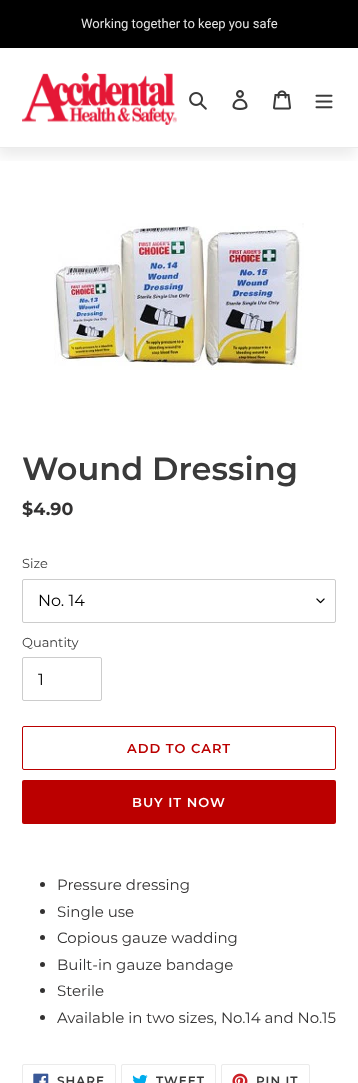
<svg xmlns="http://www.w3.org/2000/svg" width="358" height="1083">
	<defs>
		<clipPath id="clip1"><rect x="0" y="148" width="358" height="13" /></clipPath>
	</defs>
	<rect width="100%" height="100%" fill="#FFFFFF" />
	<g clip-path="url(#clip1)">
		<rect x="-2" y="56" width="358" height="100" fill="#000000" fill-opacity="0.08" filter="blur(7px)" />
	</g>
	<rect x="0" y="0" width="358" height="48" fill="#000000" />
	<text x="81" y="28" font-family="Roboto" font-size="13" fill="#E6E6E6">Working together to keep you safe</text>
	<rect x="0" y="147" width="358" height="1" fill="#EBEBEB" />
	<image x="22" y="73" width="155" height="52" href="assets/img1.png" />
	<image x="189" y="92" width="18" height="18" href="assets/img2.png" />
	<image x="232" y="90" width="16" height="20" href="assets/img3.png" />
	<image x="273" y="90" width="18" height="20" href="assets/img4.png" />
	<image x="315" y="94" width="18" height="15" href="assets/img5.png" />
	<image x="54" y="223" width="250" height="147" href="assets/img6.png" />
	<text x="22" y="480" font-family="Montserrat" font-size="32" font-weight="600" fill="#3A3A3A">Wound Dressing</text>
	<text x="22" y="515" font-family="Montserrat" font-size="17.5" font-weight="700" fill="#333232">$4.90</text>
	<text x="22" y="568" font-family="Montserrat" font-size="13" fill="#3A3A3A">Size</text>
	<image x="316" y="598" width="9" height="6" href="assets/img7.png" />
	<rect x="22.5" y="579.5" width="313" height="43" rx="1.5" fill="none" stroke="#CCCCCC" />
	<text x="38" y="606" font-family="Montserrat" font-size="16" fill="#000000">No. 14</text>
	<text x="22" y="647" font-family="Montserrat" font-size="13" fill="#3A3A3A">Quantity</text>
	<rect x="22.5" y="657.5" width="79" height="43" rx="1.5" fill="none" stroke="#CCCCCC" />
	<text x="38" y="685" font-family="Montserrat" font-size="16" fill="#000000">1</text>
	<rect x="22.5" y="726.5" width="313" height="43" rx="1.5" fill="none" stroke="#BB0000" />
	<text x="127" y="753" font-family="Montserrat" font-size="13" font-weight="600" letter-spacing="1" fill="#BB0000">ADD TO CART</text>
	<rect x="22" y="780" width="314" height="44" rx="2" fill="#BB0000" />
	<text x="132" y="807" font-family="Montserrat" font-size="13" font-weight="600" letter-spacing="1" fill="#FFFFFF">BUY IT NOW</text>
	<circle cx="42.5" cy="884.5" r="2.5" fill="#333232" />
	<text x="57" y="890" font-family="Montserrat" font-size="15" fill="#333232">Pressure dressing</text>
	<circle cx="42.5" cy="911.5" r="2.5" fill="#333232" />
	<text x="57" y="917" font-family="Montserrat" font-size="15" fill="#333232">Single use</text>
	<circle cx="42.5" cy="937.5" r="2.5" fill="#333232" />
	<text x="57" y="943" font-family="Montserrat" font-size="15" fill="#333232">Copious gauze wadding</text>
	<circle cx="42.5" cy="964.5" r="2.5" fill="#333232" />
	<text x="57" y="970" font-family="Montserrat" font-size="15" fill="#333232">Built-in gauze bandage</text>
	<circle cx="42.5" cy="990.5" r="2.5" fill="#333232" />
	<text x="57" y="996" font-family="Montserrat" font-size="15" fill="#333232">Sterile</text>
	<circle cx="42.5" cy="1017.5" r="2.5" fill="#333232" />
	<text x="57" y="1023" font-family="Montserrat" font-size="15" fill="#333232">Available in two sizes, No.14 and No.15</text>
	<rect x="22.5" y="1064.5" width="93" height="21" rx="1.5" fill="none" stroke="#EBEBEB" />
	<image x="33" y="1073" width="16" height="10" href="assets/img8.png" />
	<text x="57" y="1085" font-family="Montserrat" font-size="12" font-weight="600" letter-spacing="1" fill="#3A3A3A">SHARE</text>
	<rect x="121.5" y="1064.5" width="94" height="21" rx="1.5" fill="none" stroke="#EBEBEB" />
	<image x="132" y="1074" width="16" height="9" href="assets/img9.png" />
	<text x="156" y="1085" font-family="Montserrat" font-size="12" font-weight="600" letter-spacing="1" fill="#3A3A3A">TWEET</text>
	<rect x="221.5" y="1064.5" width="88" height="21" rx="1.5" fill="none" stroke="#EBEBEB" />
	<image x="232" y="1073" width="16" height="10" href="assets/img10.png" />
	<text x="256" y="1085" font-family="Montserrat" font-size="12" font-weight="600" letter-spacing="1" fill="#3A3A3A">PIN IT</text>
</svg>
